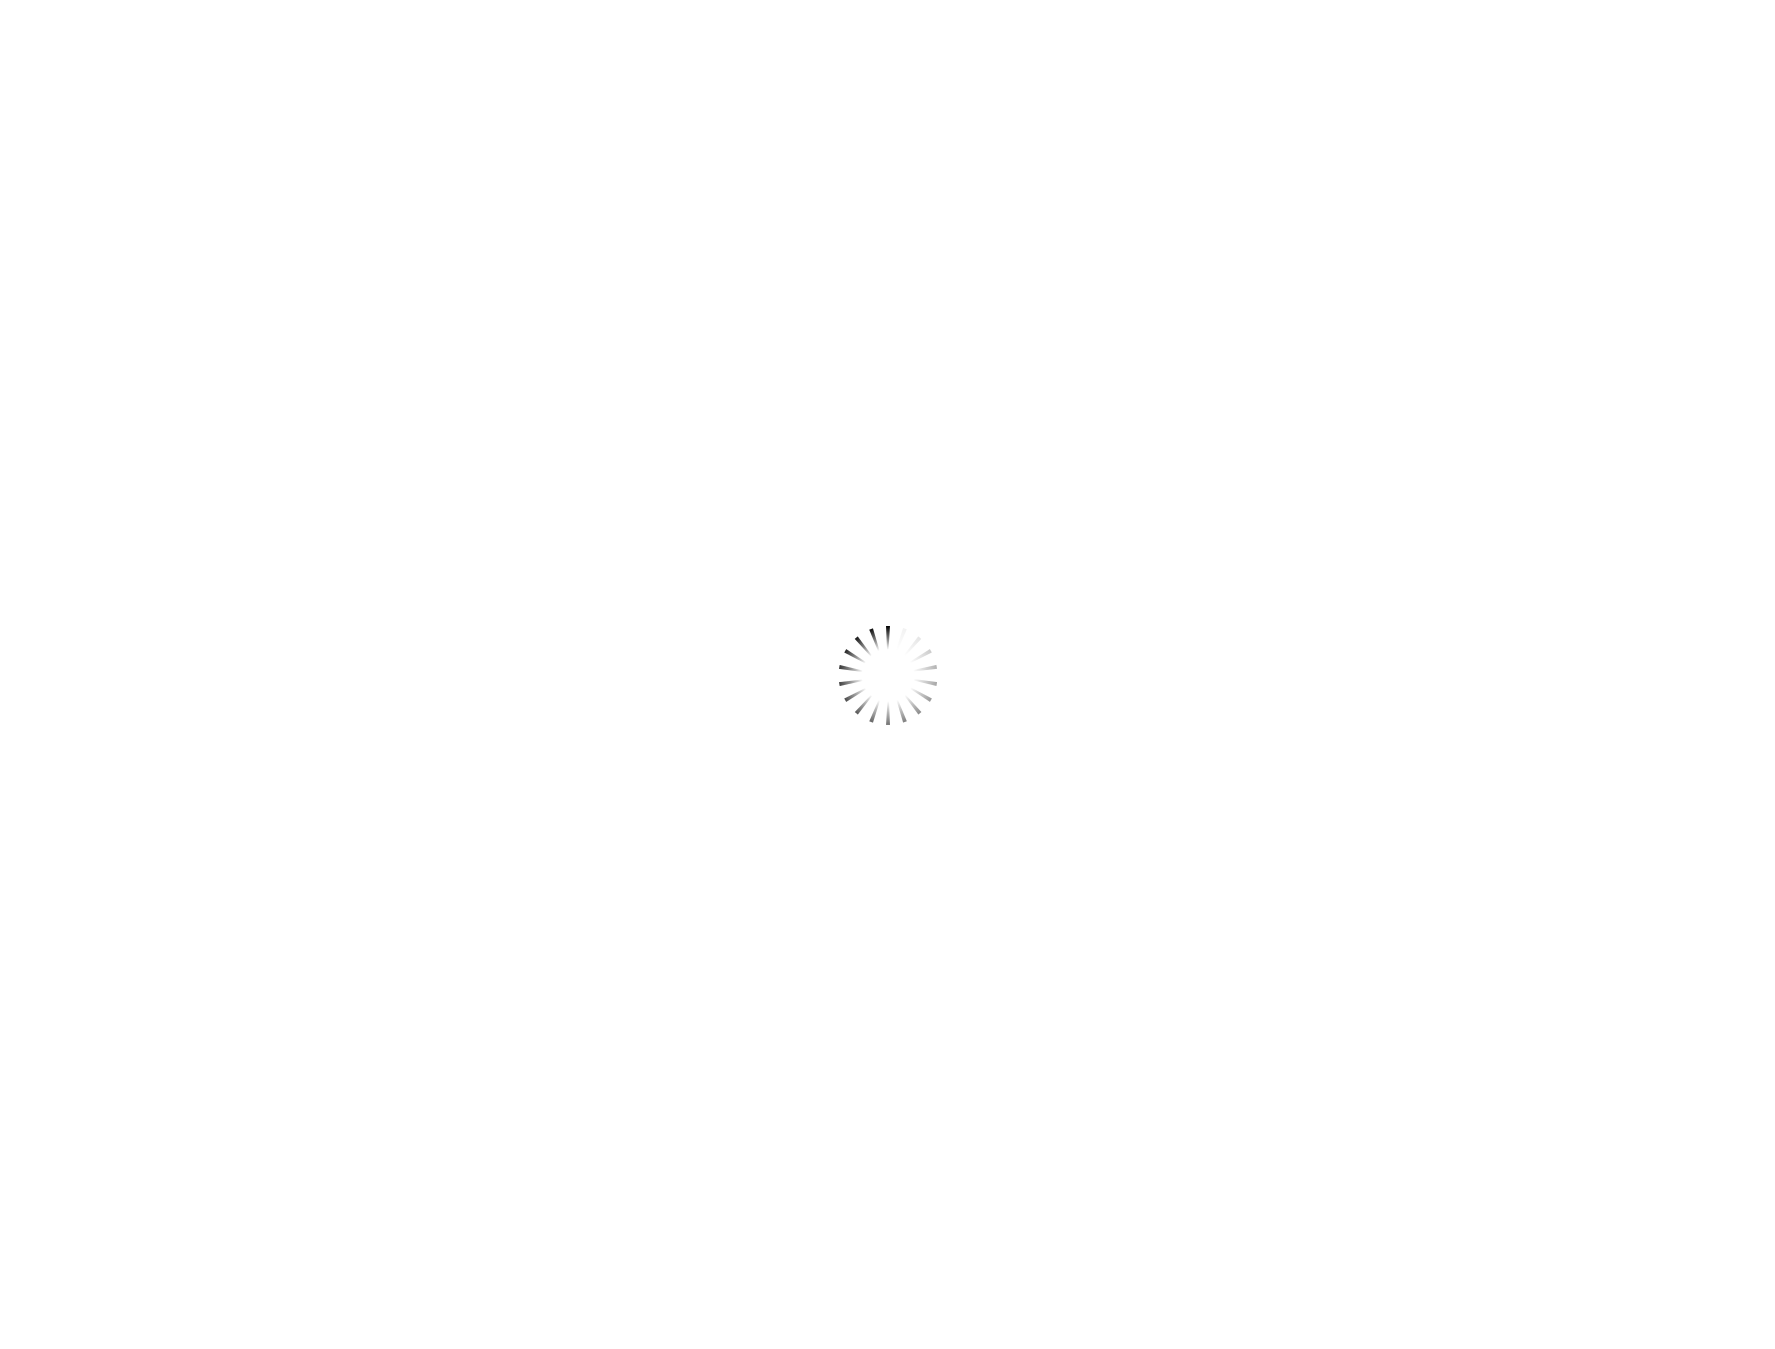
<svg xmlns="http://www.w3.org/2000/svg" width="1775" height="1349">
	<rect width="100%" height="100%" fill="#FFFFFF" />
	<image x="839" y="626" width="98" height="99" href="assets/img1.png" />
</svg>
